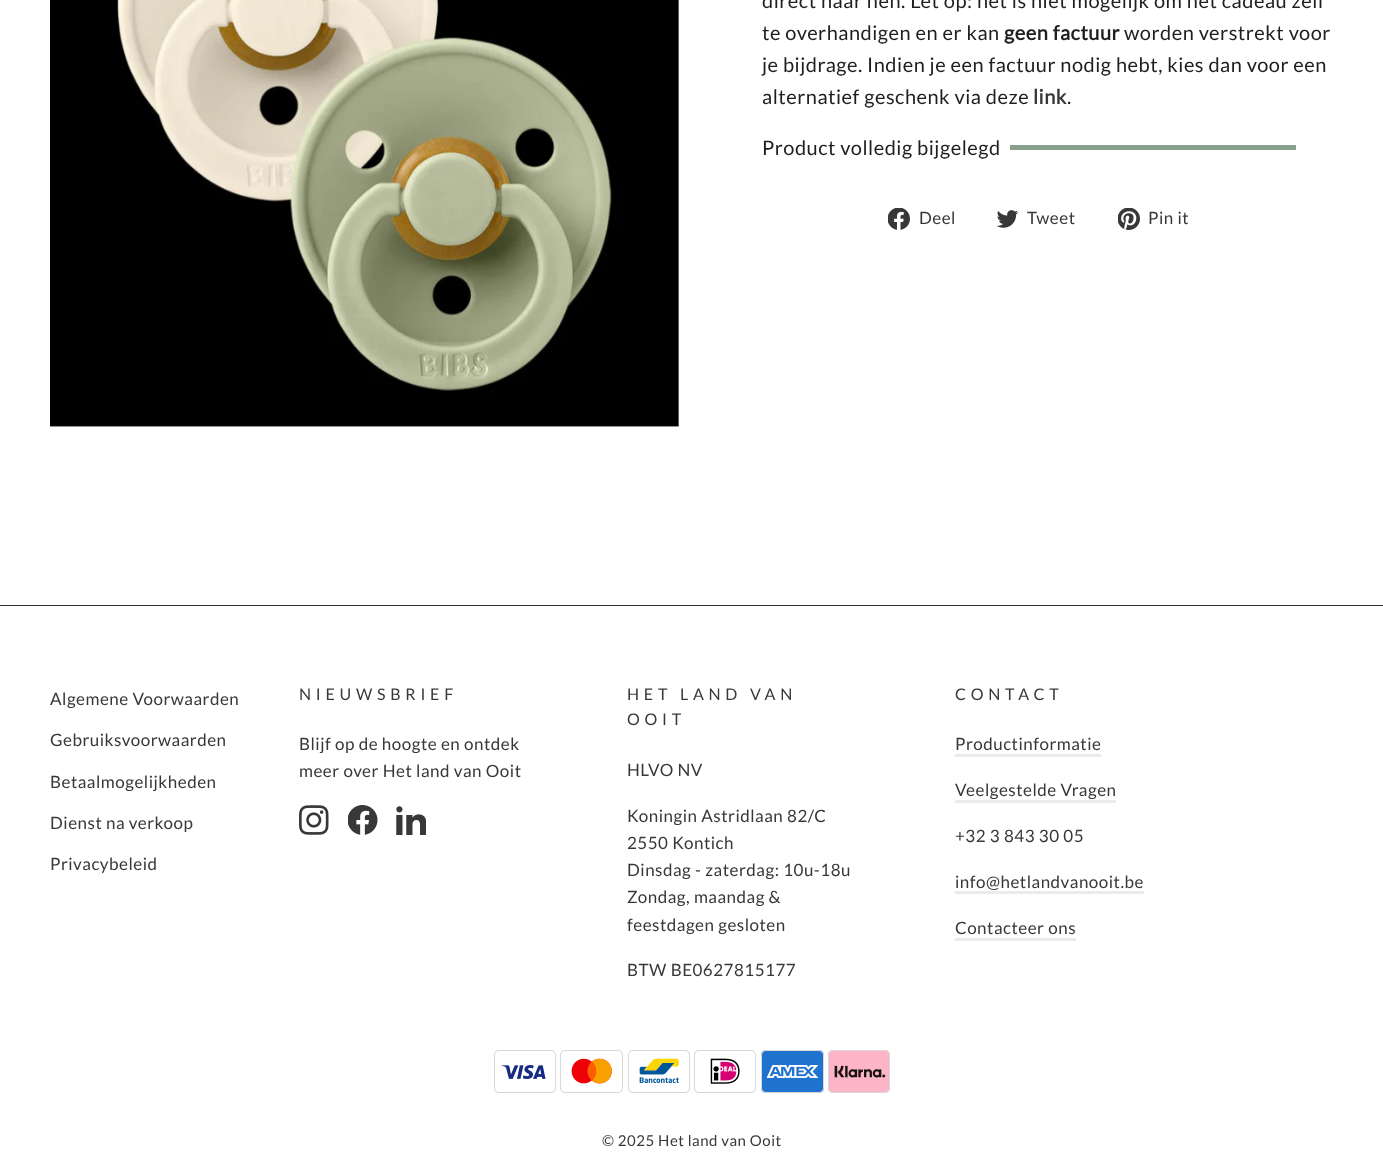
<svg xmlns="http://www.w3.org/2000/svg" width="1383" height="1168">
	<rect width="100%" height="100%" fill="#FFFFFF" />
	<image x="50" y="0" width="629" height="427" href="assets/img1.png" />
	<g font-family="Lato" font-size="20" letter-spacing="0.5" fill="#1F1F1F">
		<text x="762" y="8">direct naar hen. Let op: het is niet mogelijk om het cadeau zelf</text>
		<text x="762" y="40">te overhandigen en er kan</text>
	</g>
	<text x="1004" y="40" font-family="Lato" font-size="20" font-weight="700" letter-spacing="0.5" fill="#1F1F1F">geen factuur</text>
	<g font-family="Lato" font-size="20" letter-spacing="0.5" fill="#1F1F1F">
		<text x="1124" y="40">worden verstrekt voor</text>
		<text x="762" y="72">je bijdrage. Indien je een factuur nodig hebt, kies dan voor een</text>
		<text x="762" y="104">alternatief geschenk via deze</text>
	</g>
	<text x="1033" y="104" font-family="Lato" font-size="20" font-weight="700" letter-spacing="0.5" fill="#383937">link</text>
	<g font-family="Lato" font-size="20" letter-spacing="0.5" fill="#1F1F1F">
		<text x="1067" y="104">.</text>
		<text x="762" y="155">Product volledig bijgelegd</text>
	</g>
	<rect x="1010" y="145" width="286" height="5" fill="#88A08D" />
	<image x="888" y="208" width="22" height="22" href="assets/img2.png" />
	<text x="919" y="224" font-family="Lato" font-size="17" letter-spacing="0.5" fill="#383937">Deel</text>
	<image x="996" y="210" width="23" height="18" href="assets/img3.png" />
	<text x="1027" y="224" font-family="Lato" font-size="17" letter-spacing="0.5" fill="#383937">Tweet</text>
	<image x="1118" y="208" width="22" height="22" href="assets/img4.png" />
	<text x="1148" y="224" font-family="Lato" font-size="17" letter-spacing="0.5" fill="#383937">Pin it</text>
	<rect x="0" y="605" width="1383" height="1" fill="#333333" />
	<g font-family="Lato" font-size="17" letter-spacing="0.5" fill="#383937">
		<text x="50" y="705">Algemene Voorwaarden</text>
		<text x="50" y="746">Gebruiksvoorwaarden</text>
		<text x="50" y="788">Betaalmogelijkheden</text>
		<text x="50" y="829">Dienst na verkoop</text>
		<text x="50" y="870">Privacybeleid</text>
	</g>
	<text x="299" y="700" font-family="Lato" font-size="16" letter-spacing="4.75" fill="#383937">NIEUWSBRIEF</text>
	<g font-family="Lato" font-size="17" letter-spacing="0.5" fill="#383937">
		<text x="299" y="750">Blijf op de hoogte en ontdek</text>
		<text x="299" y="777">meer over Het land van Ooit</text>
	</g>
	<image x="299" y="805" width="30" height="30" href="assets/img5.png" />
	<image x="348" y="805" width="30" height="30" href="assets/img6.png" />
	<image x="396" y="806" width="30" height="29" href="assets/img7.png" />
	<g font-family="Lato" font-size="16" letter-spacing="4.75" fill="#383937">
		<text x="627" y="700">HET LAND VAN</text>
		<text x="627" y="725">OOIT</text>
	</g>
	<g font-family="Lato" font-size="17" letter-spacing="0.5" fill="#383937">
		<text x="627" y="776">HLVO NV</text>
		<text x="627" y="822">Koningin Astridlaan 82/C</text>
		<text x="627" y="849">2550 Kontich</text>
		<text x="627" y="876">Dinsdag - zaterdag: 10u-18u</text>
		<text x="627" y="903">Zondag, maandag &amp;</text>
		<text x="627" y="931">feestdagen gesloten</text>
		<text x="627" y="976">BTW BE0627815177</text>
	</g>
	<text x="955" y="700" font-family="Lato" font-size="16" letter-spacing="4.75" fill="#383937">CONTACT</text>
	<text x="955" y="750" font-family="Lato" font-size="17" letter-spacing="0.5" fill="#383937">Productinformatie</text>
	<rect x="955" y="754" width="146" height="3" fill="#EBEBEB" />
	<text x="955" y="796" font-family="Lato" font-size="17" letter-spacing="0.5" fill="#383937">Veelgestelde Vragen</text>
	<rect x="955" y="800" width="161" height="3" fill="#EBEBEB" />
	<g font-family="Lato" font-size="17" letter-spacing="0.5" fill="#383937">
		<text x="955" y="842">+32 3 843 30 05</text>
		<text x="955" y="888">info@hetlandvanooit.be</text>
	</g>
	<rect x="955" y="891" width="189" height="3" fill="#EBEBEB" />
	<text x="955" y="934" font-family="Lato" font-size="17" letter-spacing="0.5" fill="#383937">Contacteer ons</text>
	<rect x="955" y="938" width="121" height="3" fill="#EBEBEB" />
	<image x="494" y="1050" width="62" height="43" href="assets/img8.png" />
	<image x="560" y="1050" width="63" height="43" href="assets/img9.png" />
	<image x="628" y="1050" width="62" height="43" href="assets/img10.png" />
	<image x="694" y="1050" width="62" height="43" href="assets/img11.png" />
	<image x="761" y="1050" width="63" height="43" href="assets/img12.png" />
	<image x="828" y="1050" width="62" height="43" href="assets/img13.png" />
	<text x="602" y="1146" font-family="Lato" font-size="15" letter-spacing="0.5" fill="#383937">© 2025 Het land van Ooit</text>
</svg>
